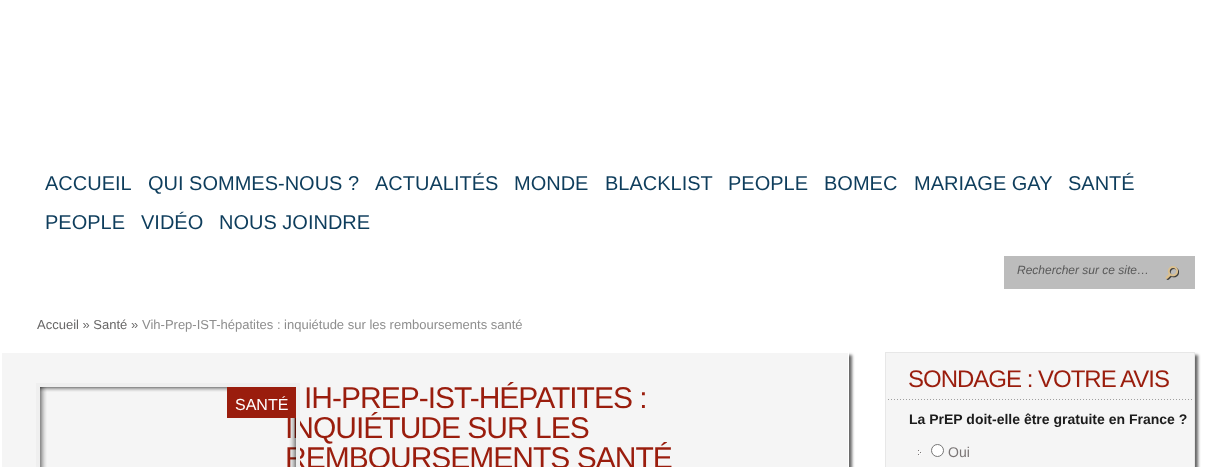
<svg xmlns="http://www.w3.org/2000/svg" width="1231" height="467">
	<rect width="100%" height="100%" fill="#FFFFFF" />
	<g font-family="Liberation Sans" font-size="20" fill="#0E3D5C">
		<text x="45" y="190">ACCUEIL</text>
		<text x="148" y="190">QUI SOMMES-NOUS ?</text>
		<text x="375" y="190">ACTUALITÉS</text>
		<text x="514" y="190">MONDE</text>
		<text x="605" y="190">BLACKLIST</text>
		<text x="728" y="190">PEOPLE</text>
		<text x="824" y="190">BOMEC</text>
		<text x="914" y="190">MARIAGE GAY</text>
		<text x="1068" y="190">SANTÉ</text>
		<text x="45" y="229">PEOPLE</text>
		<text x="141" y="229">VIDÉO</text>
		<text x="219" y="229">NOUS JOINDRE</text>
	</g>
	<rect x="1004" y="256" width="191" height="33" fill="#BCBCBC" />
	<text x="1017" y="274" font-family="Liberation Sans" font-size="12" font-style="italic" fill="#595959">Rechercher sur ce site…</text>
	<image x="1165" y="266" width="14" height="14" href="assets/img1.png" />
	<text x="37" y="329" font-family="Liberation Sans" font-size="13" fill="#686767">Accueil » Santé »</text>
	<text x="142" y="329" font-family="Liberation Sans" font-size="13" fill="#8E8E8E">Vih-Prep-IST-hépatites : inquiétude sur les remboursements santé</text>
	<rect x="4" y="355" width="848" height="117" fill="#000000" fill-opacity="0.6" filter="blur(1.5px)" />
	<rect x="1.5" y="352.5" width="847" height="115" fill="#F5F5F5" stroke="#FFFFFF" />
	<g font-family="Liberation Sans" font-size="30" letter-spacing="-1" fill="#9A1D0D">
		<text x="285" y="438">INQUIÉTUDE SUR LES</text>
		<text x="285" y="468">REMBOURSEMENTS SANTÉ</text>
	</g>
	<rect x="38" y="385" width="260" height="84" fill="none" stroke="#EFEFEF" stroke-width="4" />
	<image x="40" y="387" width="256" height="80" href="assets/img2.png" />
	<rect x="227" y="387" width="69" height="31" fill="#9A1D0D" />
	<text x="235" y="410" font-family="Liberation Sans" font-size="16" fill="#FFFFFF">SANTÉ</text>
	<text x="304" y="408" font-family="Liberation Sans" font-size="30" letter-spacing="-1" fill="#9A1D0D">IH-PREP-IST-HÉPATITES :</text>
	<rect x="888" y="355" width="310" height="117" fill="#000000" fill-opacity="0.6" filter="blur(1.5px)" />
	<rect x="885.5" y="352.5" width="309" height="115" fill="#F5F5F5" stroke="#E7E7E7" />
	<image x="888" y="399" width="304" height="1" href="assets/img3.png" />
	<text x="908" y="387" font-family="Liberation Sans" font-size="24" letter-spacing="-1" fill="#9A1D0D">SONDAGE : VOTRE AVIS</text>
	<text x="909" y="424" font-family="Liberation Sans" font-size="14" font-weight="700" fill="#1C1C1C">La PrEP doit-elle être gratuite en France ?</text>
	<image x="918" y="450" width="4" height="6" href="assets/img4.png" />
	<circle cx="937.5" cy="450.5" r="6" fill="#FFFFFF" stroke="#767676" />
	<text x="948" y="457" font-family="Liberation Sans" font-size="14" fill="#7A7575">Oui</text>
</svg>
